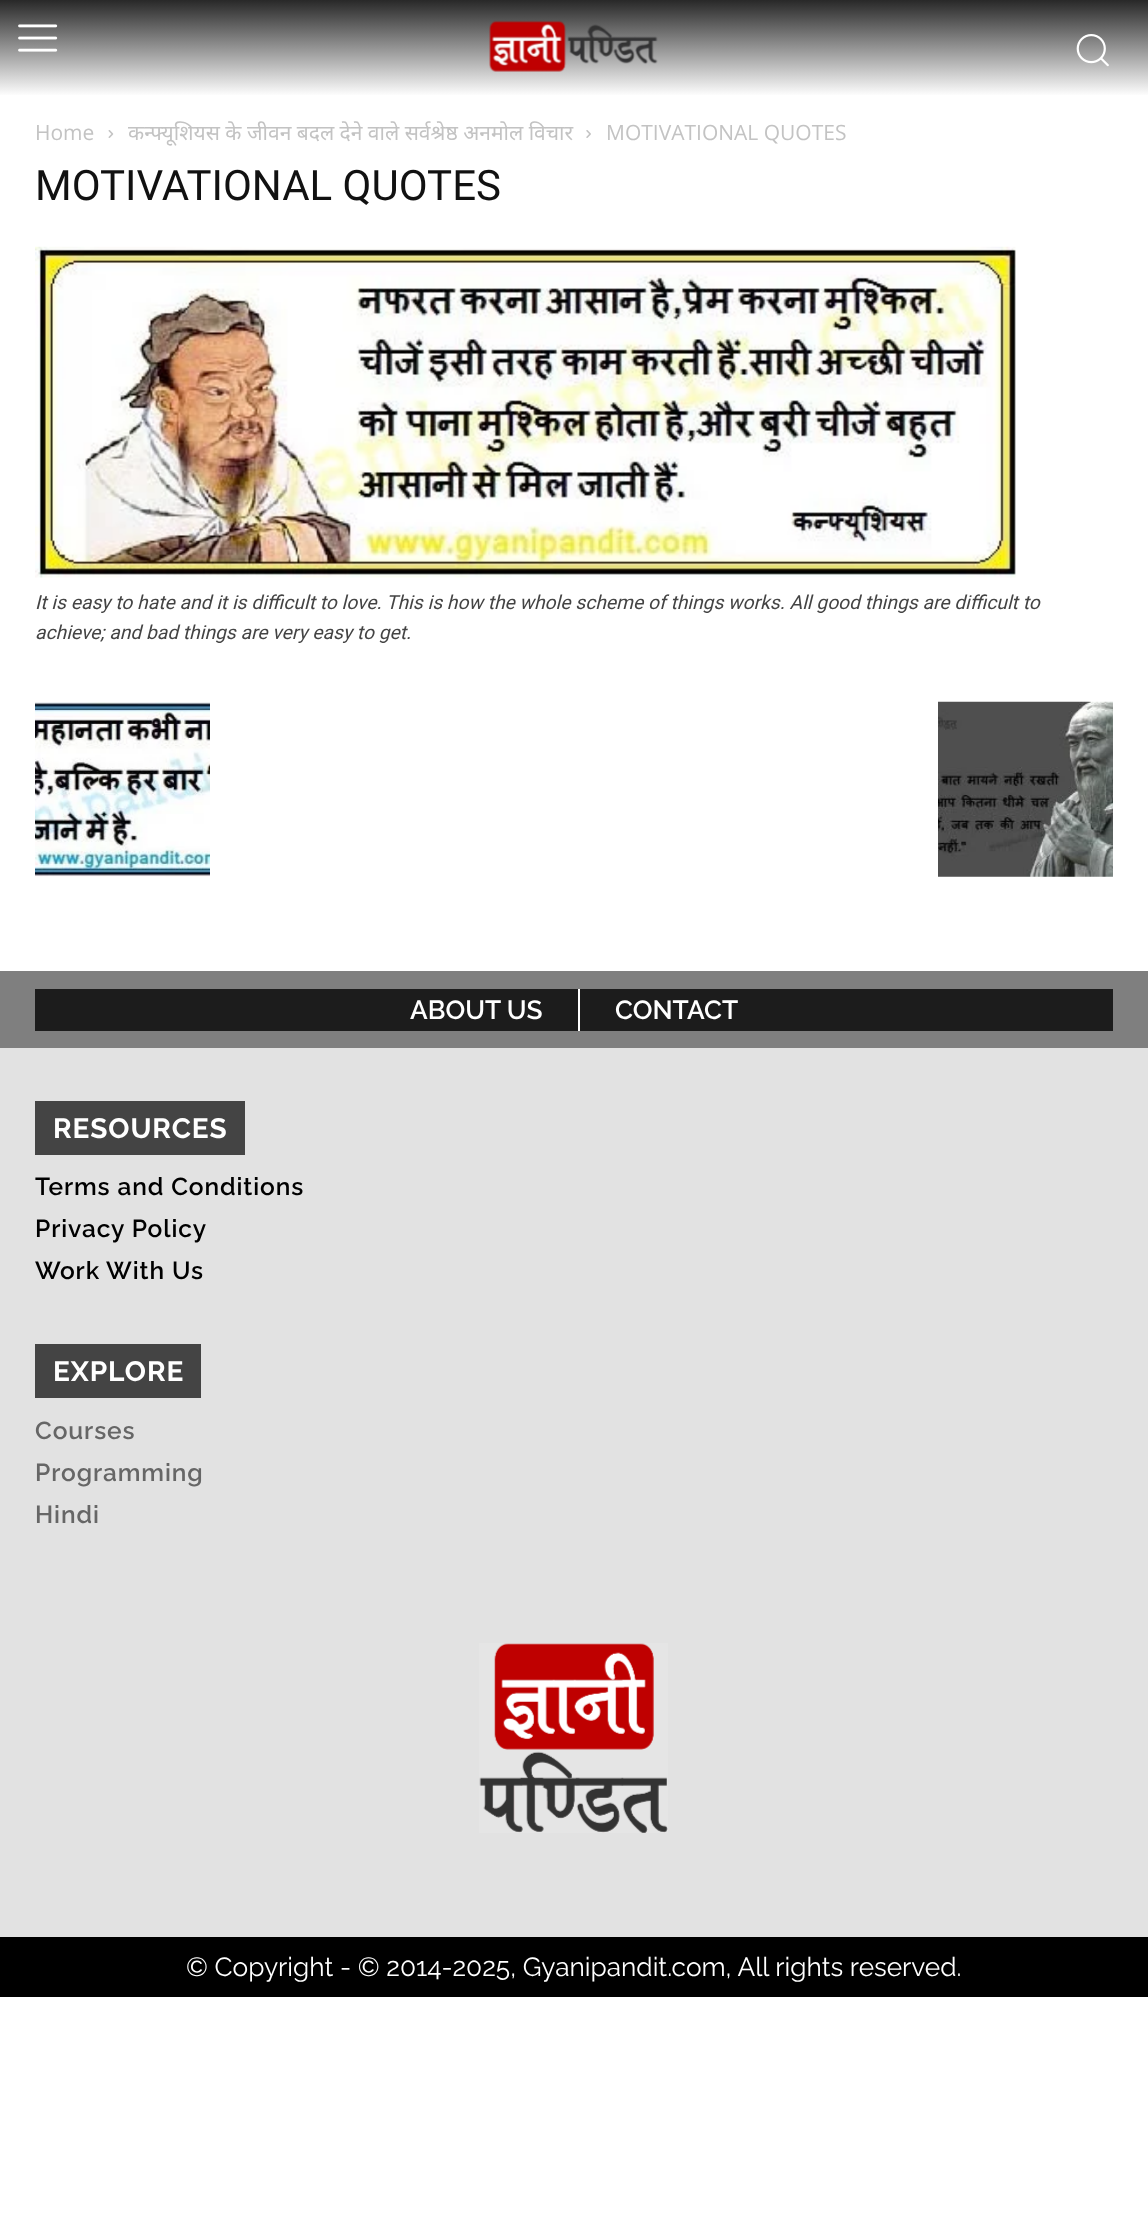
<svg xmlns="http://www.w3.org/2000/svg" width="1148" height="2238">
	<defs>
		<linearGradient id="g1" gradientUnits="userSpaceOnUse" x1="574" y1="0" x2="574" y2="96"><stop offset="0" stop-color="#282828" /><stop offset="1" stop-color="#FFFFFF" /></linearGradient>
	</defs>
	<rect width="100%" height="100%" fill="#FFFFFF" />
	<rect x="0" y="0" width="1148" height="95" fill="url(#g1)" />
	<image x="18" y="24" width="40" height="28" href="assets/img1.png" />
	<image x="489" y="20" width="169" height="52" href="assets/img2.png" />
	<image x="1076" y="34" width="33" height="33" href="assets/img3.png" />
	<text x="35" y="140" font-family="Open Sans" font-size="21" fill="#C3C3C3">Home</text>
	<image x="108" y="130" width="6" height="8" href="assets/img4.png" />
	<text x="128" y="140" font-family="Noto Sans" font-size="21" fill="#C3C3C3">कन्फ्यूशियस के जीवन बदल देने वाले सर्वश्रेष्ठ अनमोल विचार</text>
	<image x="586" y="130" width="5" height="8" href="assets/img5.png" />
	<text x="606" y="140" font-family="Open Sans" font-size="21" fill="#C3C3C3">MOTIVATIONAL QUOTES</text>
	<text x="35" y="200" font-family="Roboto" font-size="42" fill="#111111">MOTIVATIONAL QUOTES</text>
	<image x="35" y="246" width="981" height="332" href="assets/img6.png" />
	<g font-family="Roboto" font-size="19.25" font-style="italic" fill="#444444">
		<text x="35" y="609">It is easy to hate and it is difficult to love. This is how the whole scheme of things works. All good things are difficult to</text>
		<text x="35" y="639">achieve; and bad things are very easy to get.</text>
	</g>
	<image x="35" y="702" width="175" height="175" href="assets/img7.png" />
	<image x="938" y="701" width="175" height="176" href="assets/img8.png" />
	<rect x="0" y="971" width="1148" height="77" fill="#7F7F7F" />
	<rect x="35" y="989" width="1078" height="42" fill="#1C1C1C" />
	<rect x="578" y="989" width="2" height="42" fill="#FFFFFF" />
	<g font-family="Raleway" font-size="26.25" font-weight="600" fill="#FFFFFF">
		<text x="410" y="1019">ABOUT US</text>
		<text x="615" y="1019">CONTACT</text>
	</g>
	<rect x="0" y="1048" width="1148" height="889" fill="#E2E2E2" />
	<rect x="35" y="1101" width="210" height="54" fill="#444444" />
	<text x="53" y="1138" font-family="Raleway" font-size="28" font-weight="700" letter-spacing="0.9" fill="#FFFFFF">RESOURCES</text>
	<g font-family="Raleway" font-size="24.5" font-weight="600" letter-spacing="0.9" fill="#000000">
		<text x="35" y="1195">Terms and Conditions</text>
		<text x="35" y="1237">Privacy Policy</text>
		<text x="35" y="1279">Work With Us</text>
	</g>
	<rect x="35" y="1344" width="166" height="54" fill="#444444" />
	<text x="53" y="1381" font-family="Raleway" font-size="28" font-weight="700" letter-spacing="0.9" fill="#FFFFFF">EXPLORE</text>
	<g font-family="Raleway" font-size="24.5" font-weight="600" letter-spacing="0.9" fill="#666666">
		<text x="35" y="1439">Courses</text>
		<text x="35" y="1481">Programming</text>
		<text x="35" y="1523">Hindi</text>
	</g>
	<image x="479" y="1643" width="189" height="190" href="assets/img9.png" />
	<rect x="0" y="1937" width="1148" height="60" fill="#000000" />
	<text x="186" y="1976" font-family="Raleway" font-size="26.25" fill="#FFFFFF">© Copyright - © 2014-2025, Gyanipandit.com, All rights reserved.</text>
</svg>
